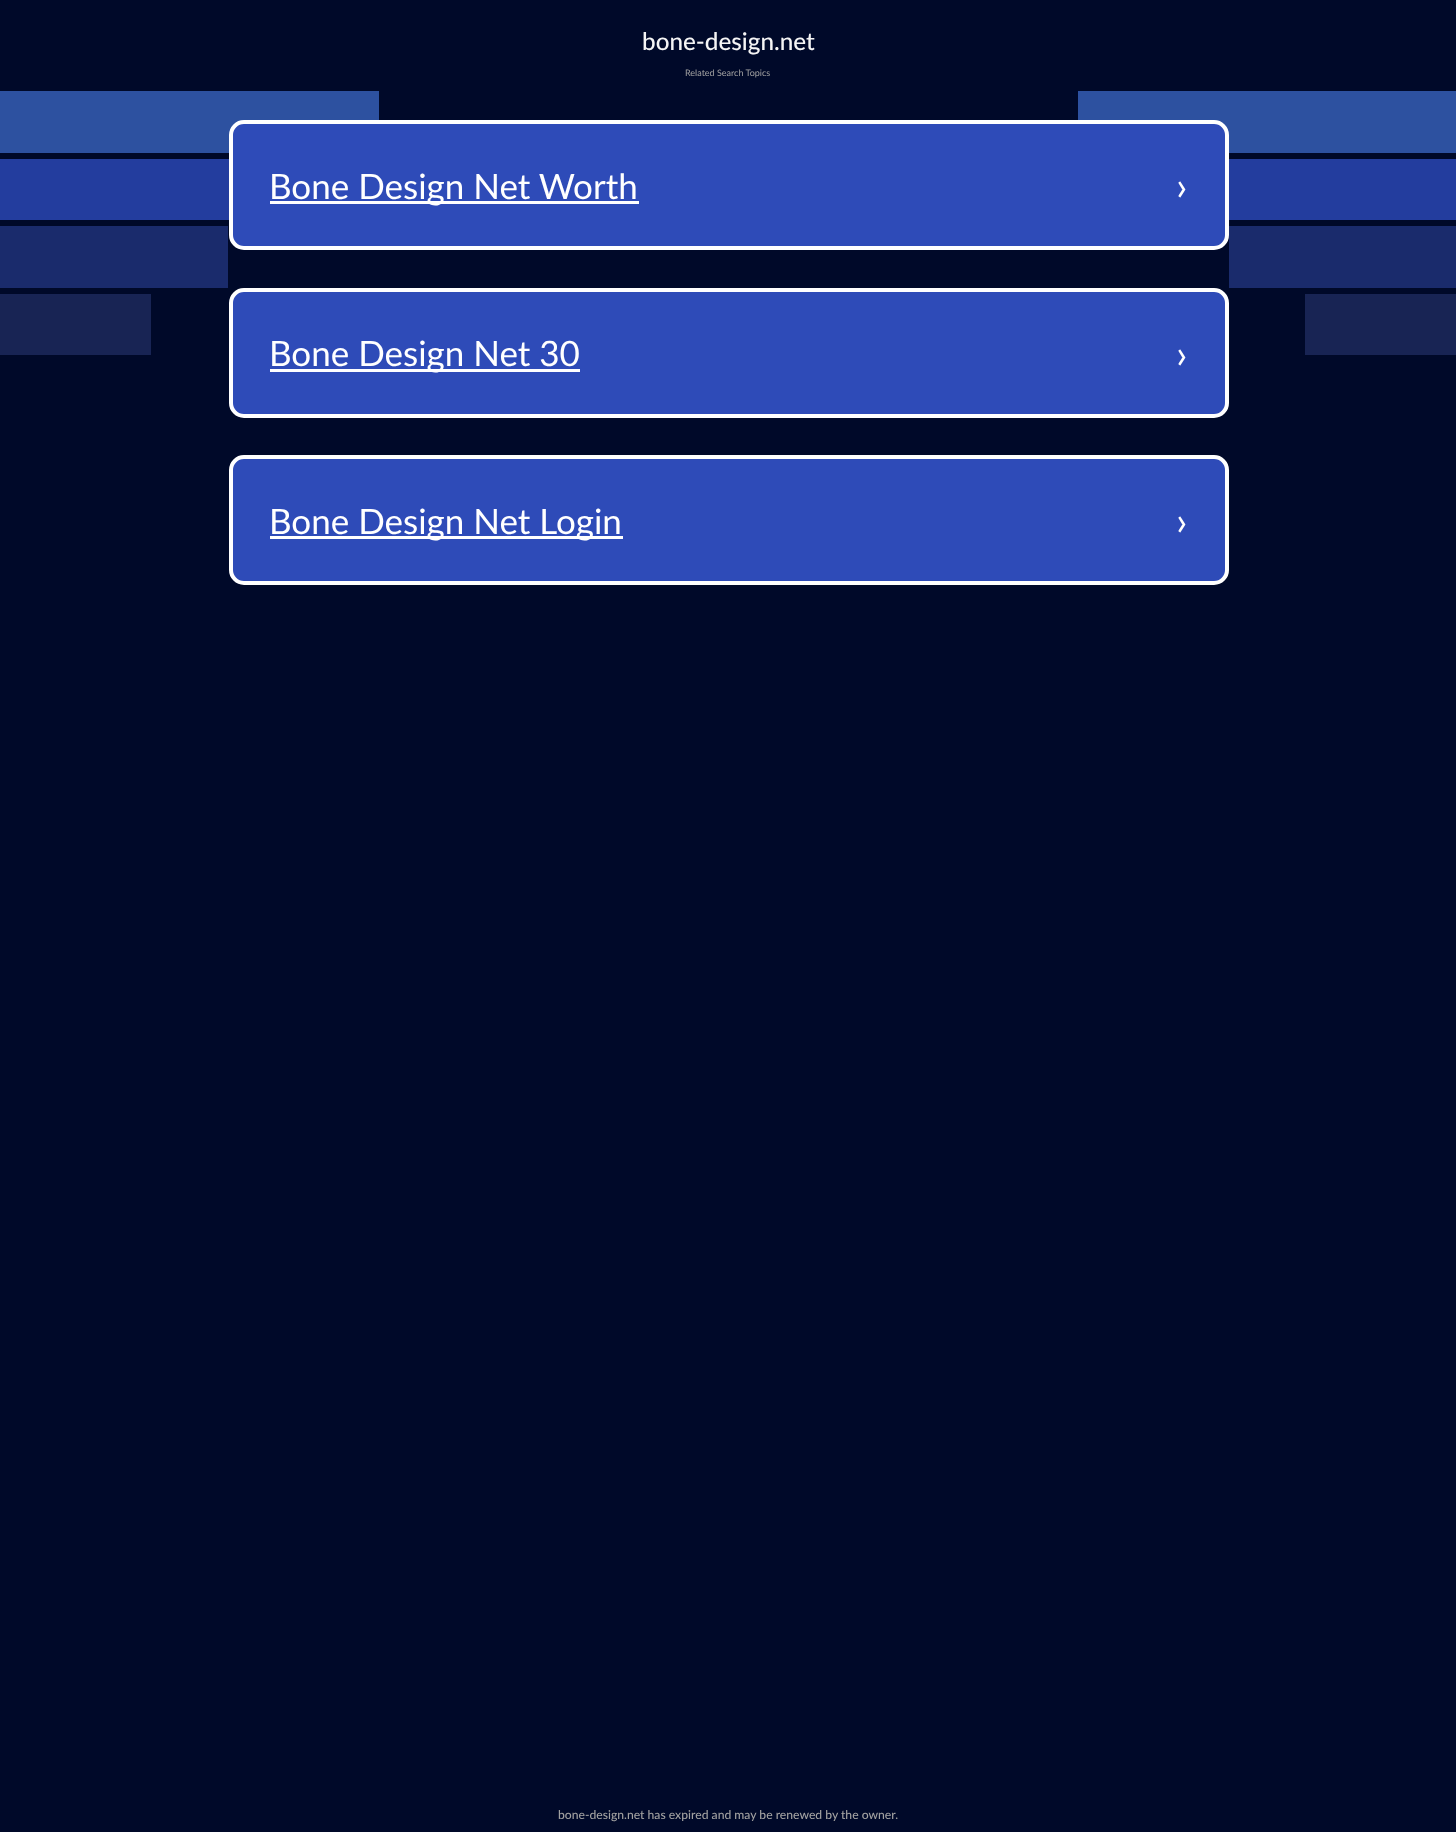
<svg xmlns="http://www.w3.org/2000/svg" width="1456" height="1832">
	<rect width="100%" height="100%" fill="#000929" />
	<text x="642" y="50" font-family="Lato" font-size="24.25" font-weight="500" fill="#F5F5F5">bone-design.net</text>
	<text x="685" y="76" font-family="Lato" font-size="9" fill="#A1A1A1">Related Search Topics</text>
	<rect x="0" y="91" width="379" height="62" fill="#2D51A0" />
	<rect x="1078" y="91" width="378" height="62" fill="#2D51A0" />
	<rect x="231" y="122" width="996" height="126" rx="13" fill="#2E4BB8" stroke="#FFFFFF" stroke-width="4" />
	<rect x="270" y="201" width="369" height="3" fill="#FFFFFF" />
	<text x="269" y="199" font-family="Lato" font-size="35" fill="#FFFFFF">Bone Design Net Worth</text>
	<text x="1176" y="200" font-family="Lato" font-size="40" fill="#FFFFFF">›</text>
	<rect x="231" y="290" width="996" height="126" rx="13" fill="#2E4BB8" stroke="#FFFFFF" stroke-width="4" />
	<rect x="270" y="369" width="310" height="3" fill="#FFFFFF" />
	<text x="269" y="366" font-family="Lato" font-size="35" fill="#FFFFFF">Bone Design Net 30</text>
	<text x="1176" y="368" font-family="Lato" font-size="40" fill="#FFFFFF">›</text>
	<rect x="231" y="457" width="996" height="126" rx="13" fill="#2E4BB8" stroke="#FFFFFF" stroke-width="4" />
	<rect x="270" y="536" width="353" height="3" fill="#FFFFFF" />
	<text x="269" y="534" font-family="Lato" font-size="35" fill="#FFFFFF">Bone Design Net Login</text>
	<text x="1176" y="535" font-family="Lato" font-size="40" fill="#FFFFFF">›</text>
	<text x="558" y="1819" font-family="Lato" font-size="12.15" font-weight="500" fill="#A1A1A1">bone-design.net has expired and may be renewed by the owner.</text>
	<rect x="0" y="159" width="229" height="61" fill="#233D9E" />
	<rect x="0" y="226" width="228" height="62" fill="#1A2B6C" />
	<rect x="0" y="294" width="151" height="61" fill="#182454" />
	<rect x="1229" y="159" width="227" height="61" fill="#233D9E" />
	<rect x="1229" y="226" width="227" height="62" fill="#1A2B6C" />
	<rect x="1305" y="294" width="151" height="61" fill="#182454" />
</svg>
